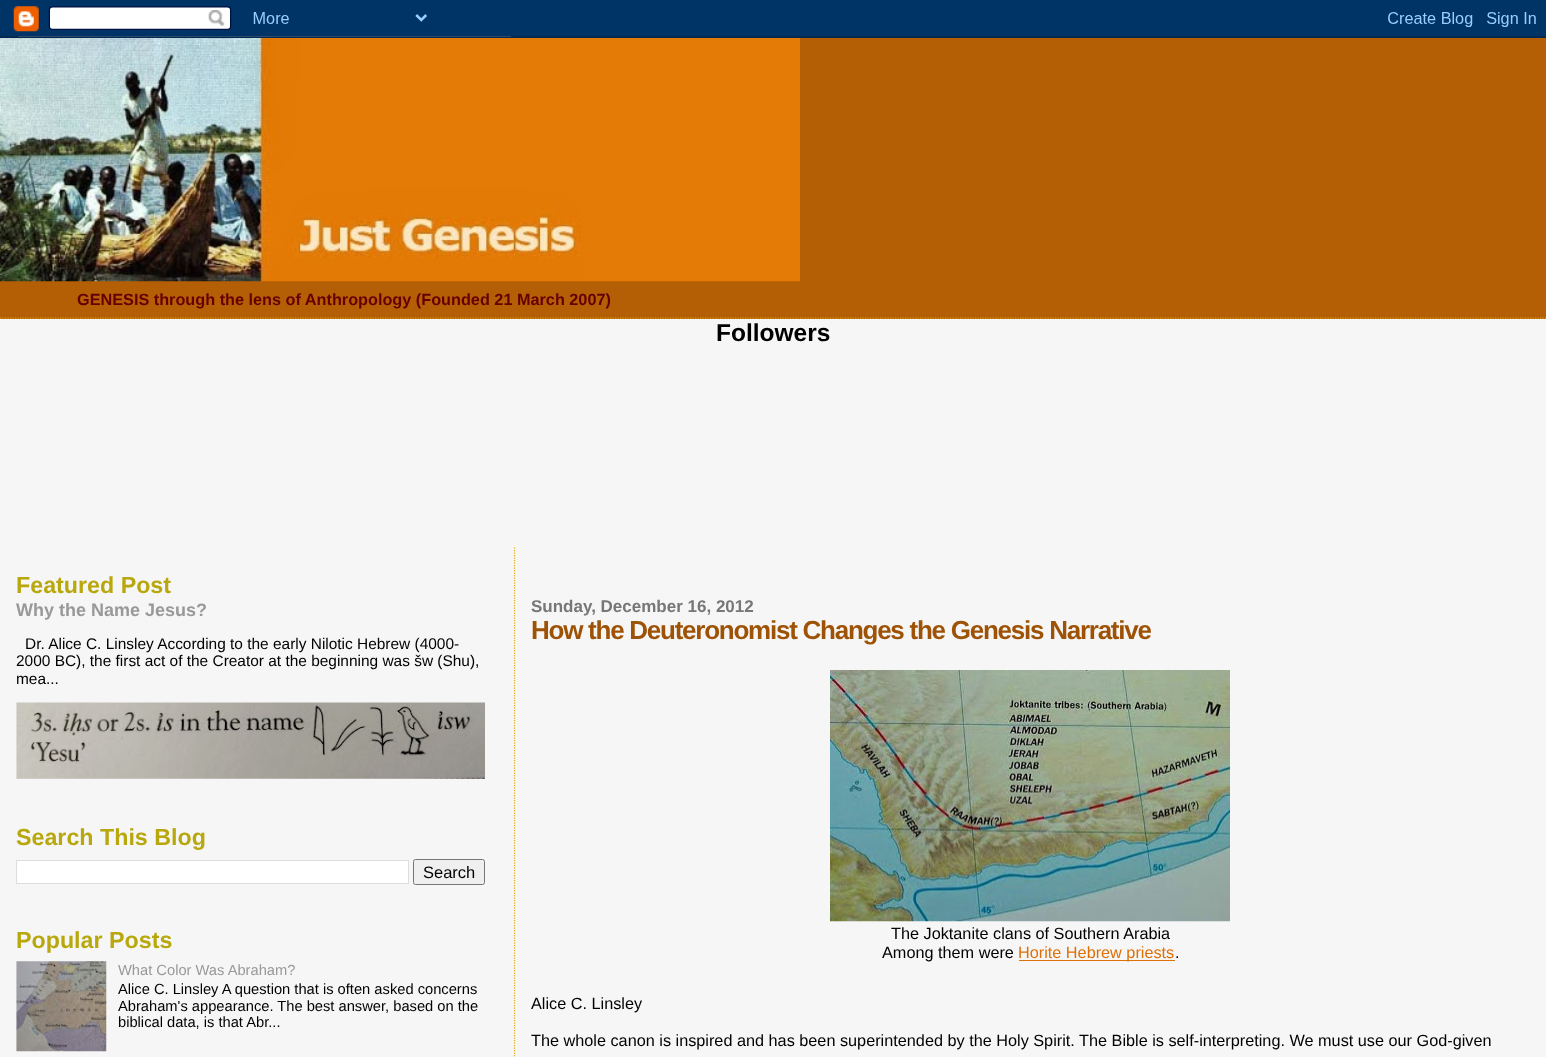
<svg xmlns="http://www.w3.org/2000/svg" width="1546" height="1057">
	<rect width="100%" height="100%" fill="#F6F6F6" />
	<image x="0" y="0" width="1546" height="38" href="assets/img1.png" />
	<rect x="0" y="38" width="1546" height="281" fill="#B45F06" />
	<path d="M0 318H1546" fill="none" stroke="#E0AD12" stroke-width="1.2" stroke-dasharray="1.25 1.25" />
	<image x="0" y="38" width="800" height="244" href="assets/img2.png" />
	<text x="77" y="305" font-family="Liberation Sans" font-size="16.25" font-weight="700" fill="#660000">GENESIS through the lens of Anthropology (Founded 21 March 2007)</text>
	<text x="716" y="341" font-family="Liberation Sans" font-size="24.5" font-weight="700" fill="#000000">Followers</text>
	<text x="16" y="593" font-family="Liberation Sans" font-size="23.25" font-weight="700" fill="#B8A80D">Featured Post</text>
	<text x="16" y="616" font-family="Liberation Sans" font-size="18" font-weight="700" fill="#999999">Why the Name Jesus?</text>
	<g font-family="Liberation Sans" font-size="15.45" fill="#000000">
		<text x="25" y="649">Dr. Alice C. Linsley According to the early Nilotic Hebrew (4000-</text>
		<text x="16" y="666">2000 BC), the first act of the Creator at the beginning was šw (Shu),</text>
		<text x="16" y="684">mea...</text>
	</g>
	<image x="16" y="702" width="469" height="77" href="assets/img3.png" />
	<text x="16" y="845" font-family="Liberation Sans" font-size="23.25" font-weight="700" fill="#B8A80D">Search This Blog</text>
	<rect x="16.5" y="860.5" width="392" height="23" fill="#FFFFFF" stroke="#DDDDDD" />
	<rect x="413.5" y="859.5" width="71" height="25" rx="2" fill="#EFEFEF" stroke="#767676" />
	<text x="423" y="878" font-family="Liberation Sans" font-size="16.5" fill="#000000">Search</text>
	<text x="16" y="948" font-family="Liberation Sans" font-size="23.25" font-weight="700" fill="#B8A80D">Popular Posts</text>
	<image x="16" y="961" width="91" height="91" href="assets/img4.png" />
	<text x="118" y="975" font-family="Liberation Sans" font-size="14.7" fill="#999999">What Color Was Abraham?</text>
	<g font-family="Liberation Sans" font-size="14.7" fill="#000000">
		<text x="118" y="994">Alice C. Linsley A question that is often asked concerns</text>
		<text x="118" y="1011">Abraham's appearance. The best answer, based on the</text>
		<text x="118" y="1027">biblical data, is that Abr...</text>
	</g>
	<path d="M514.5 547.5V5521" fill="none" stroke="#E0AD12" stroke-width="1.2" stroke-dasharray="1.25 1.25" />
	<text x="531" y="612" font-family="Liberation Sans" font-size="17" font-weight="700" fill="#777777">Sunday, December 16, 2012</text>
	<text x="531" y="639" font-family="Liberation Sans" font-size="26" font-weight="700" letter-spacing="-1.25" fill="#9E5205">How the Deuteronomist Changes the Genesis Narrative</text>
	<image x="830" y="670" width="400" height="252" href="assets/img5.png" />
	<g font-family="Liberation Sans" font-size="16.25" fill="#000000">
		<text x="891" y="939">The Joktanite clans of Southern Arabia</text>
		<text x="882" y="958">Among them were</text>
	</g>
	<rect x="1019" y="960" width="156" height="1" fill="#DE7008" />
	<text x="1018" y="958" font-family="Liberation Sans" font-size="16.25" fill="#DE7008">Horite Hebrew priests</text>
	<g font-family="Liberation Sans" font-size="16.25" fill="#000000">
		<text x="1175" y="958">.</text>
		<text x="531" y="1009">Alice C. Linsley</text>
		<text x="531" y="1046">The whole canon is inspired and has been superintended by the Holy Spirit. The Bible is self-interpreting. We must use our God-given</text>
	</g>
</svg>
